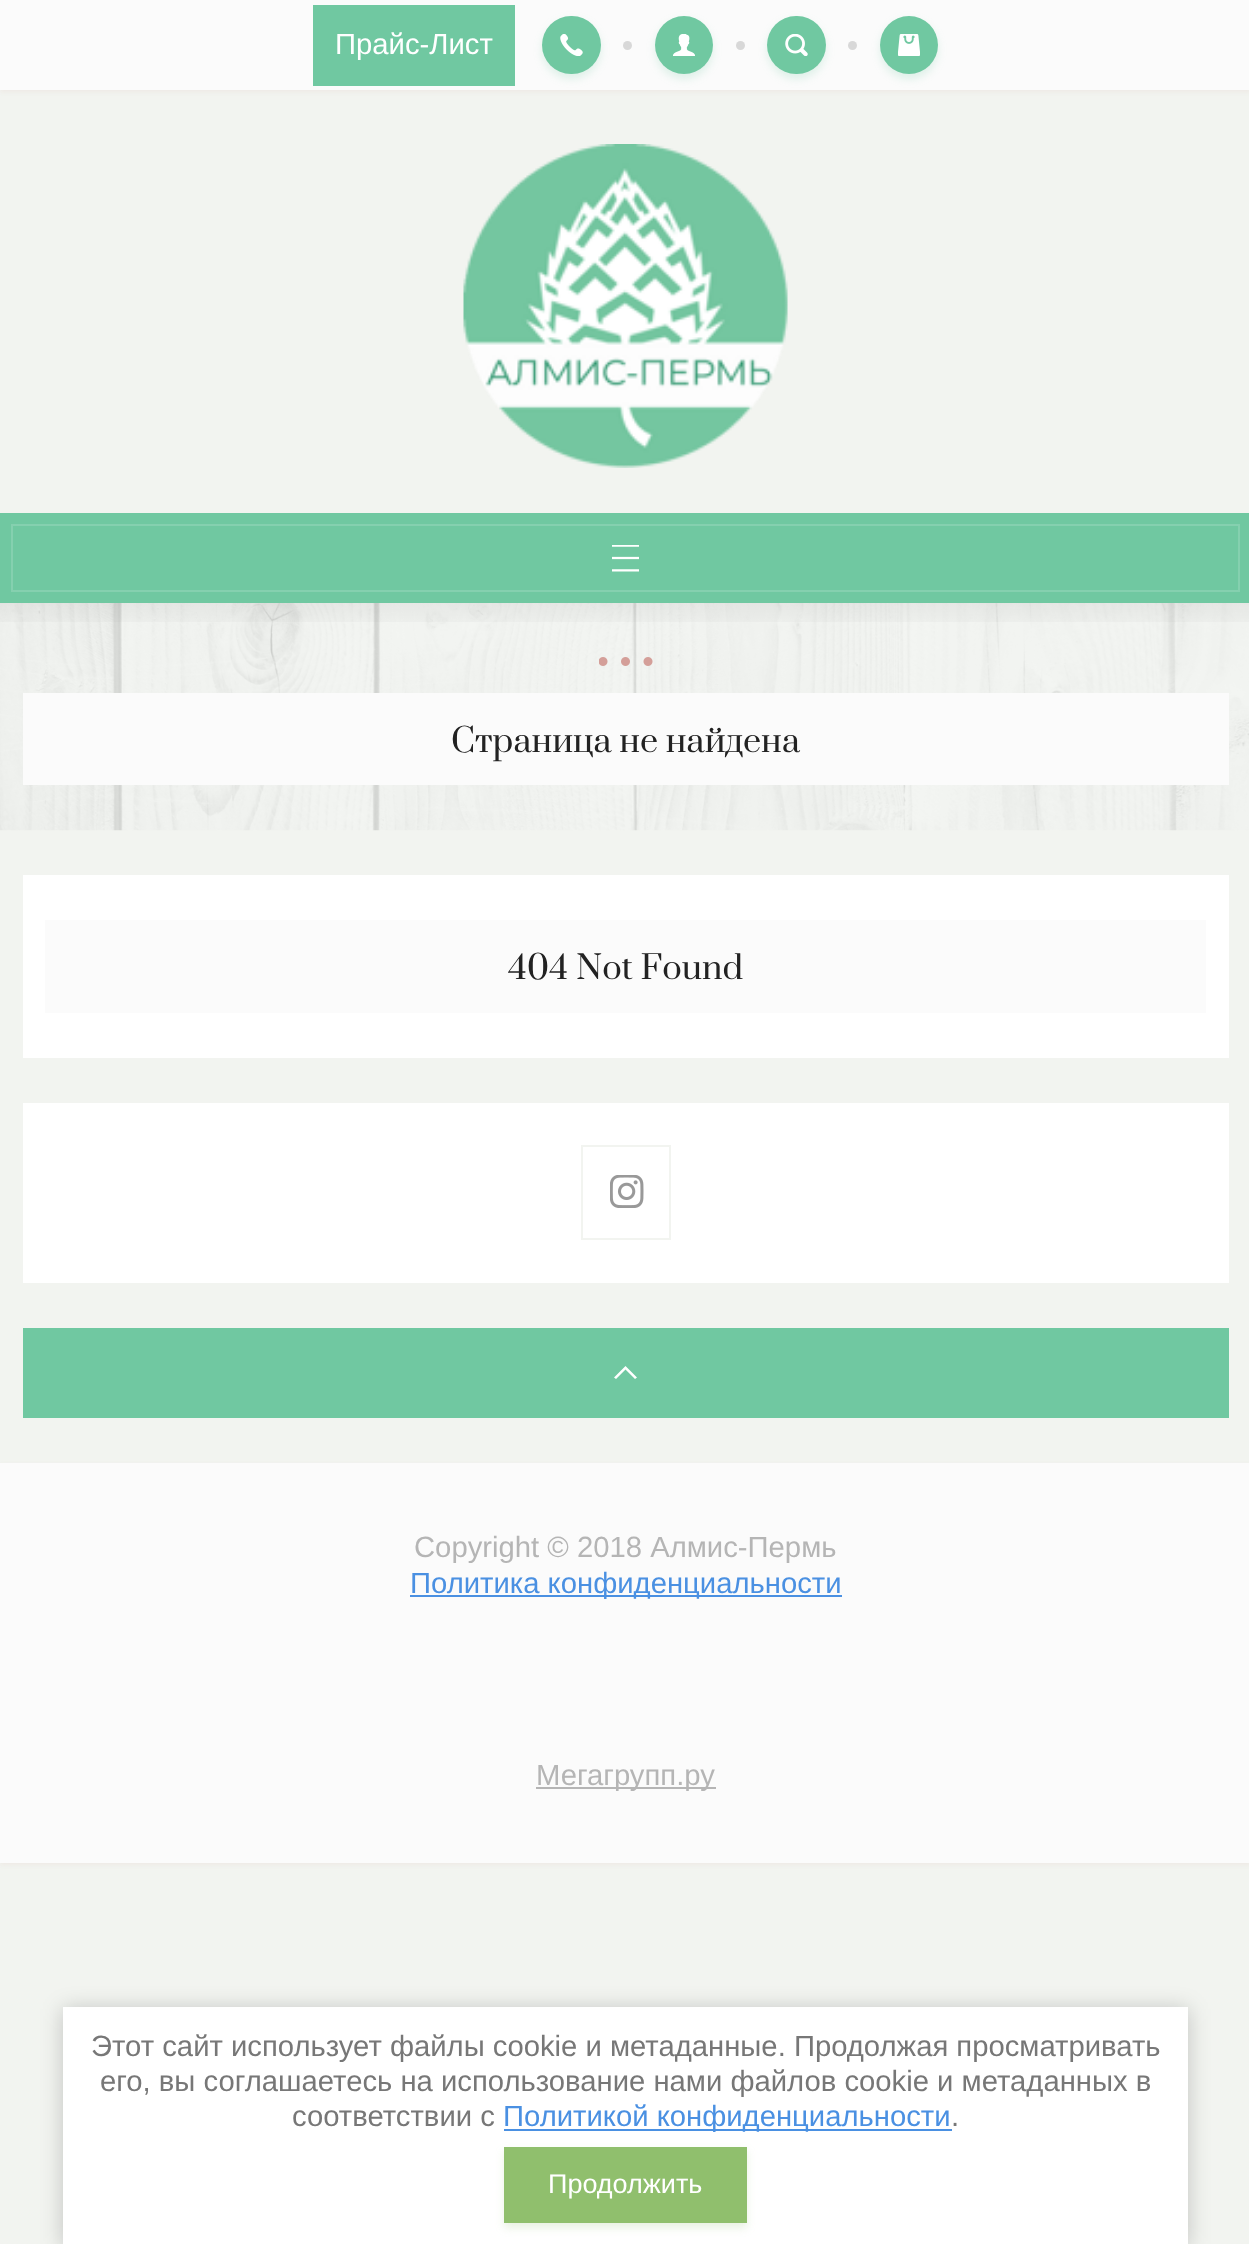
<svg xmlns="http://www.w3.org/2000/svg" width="1249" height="2244">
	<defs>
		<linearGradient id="g1" gradientUnits="userSpaceOnUse" x1="626" y1="603" x2="626" y2="637"><stop offset="0" stop-color="#000000" stop-opacity="0.05" /><stop offset="1" stop-color="#000000" stop-opacity="0" /></linearGradient>
	</defs>
	<rect width="100%" height="100%" fill="#F2F4F0" />
	<rect x="0" y="2" width="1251" height="90" fill="#EEEAE5" filter="blur(2px)" />
	<rect x="0" y="0" width="1249" height="90" fill="#FBFBFB" />
	<rect x="313" y="5" width="202" height="81" fill="#70C8A1" />
	<text x="335" y="54" font-family="Liberation Sans" font-size="29.25" fill="#FFFFFF">Прайс-Лист</text>
	<rect x="542" y="20" width="59" height="59" rx="29.5" fill="#70C8A1" fill-opacity="0.2" filter="blur(4.5px)" />
	<rect x="542" y="16" width="59" height="58" rx="29" fill="#70C8A1" />
	<image x="560" y="34" width="23" height="22" href="assets/img1.png" />
	<circle cx="627.5" cy="45.5" r="4.5" fill="#D8D8D8" />
	<rect x="655" y="20" width="58" height="59" rx="29" fill="#70C8A1" fill-opacity="0.2" filter="blur(4.5px)" />
	<circle cx="684" cy="45" r="29" fill="#70C8A1" />
	<image x="673" y="34" width="22" height="22" href="assets/img2.png" />
	<circle cx="740.5" cy="45.5" r="4.5" fill="#D8D8D8" />
	<rect x="767" y="20" width="59" height="59" rx="29.5" fill="#70C8A1" fill-opacity="0.2" filter="blur(4.5px)" />
	<rect x="767" y="16" width="59" height="58" rx="29" fill="#70C8A1" />
	<image x="785" y="34" width="23" height="22" href="assets/img3.png" />
	<circle cx="852.5" cy="45.5" r="4.5" fill="#D8D8D8" />
	<rect x="880" y="20" width="58" height="59" rx="29" fill="#70C8A1" fill-opacity="0.2" filter="blur(4.5px)" />
	<circle cx="909" cy="45" r="29" fill="#70C8A1" />
	<image x="898" y="34" width="22" height="22" href="assets/img4.png" />
	<image x="463" y="144" width="325" height="324" href="assets/img5.png" />
	<rect x="0" y="513" width="1249" height="90" fill="#70C8A1" />
	<image x="612" y="545" width="27" height="27" href="assets/img6.png" />
	<rect x="12" y="525" width="1227" height="66" fill="none" stroke="#85D0AF" stroke-width="2" />
	<image x="0" y="603" width="1249" height="228" href="assets/img7.png" />
	<rect x="0" y="603" width="1249" height="19" fill="url(#g1)" />
	<image x="599" y="657" width="54" height="9" href="assets/img8.png" />
	<rect x="23" y="693" width="1206" height="92" fill="#FBFBFB" />
	<text x="451" y="752" font-family="Prata" font-size="32.25" fill="#222222">Страница не найдена</text>
	<rect x="23" y="875" width="1206" height="183" fill="#FFFFFF" />
	<rect x="45" y="920" width="1161" height="93" fill="#FBFBFB" />
	<text x="508" y="979" font-family="Prata" font-size="32.25" fill="#222222">404 Not Found</text>
	<rect x="23" y="1103" width="1206" height="180" fill="#FFFFFF" />
	<rect x="582" y="1146" width="88" height="93" fill="none" stroke="#F2F4F0" stroke-width="2" />
	<image x="610" y="1175" width="34" height="33" href="assets/img9.png" />
	<rect x="23" y="1328" width="1206" height="90" fill="#70C8A1" />
	<path d="M625.5 1369.5L616 1379L614 1377.5L625.5 1366L637 1377.5L635 1379Z" fill="#FFFFFF" />
	<rect x="0" y="1465" width="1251" height="400" fill="#EEEAE5" filter="blur(2px)" />
	<rect x="0" y="1463" width="1249" height="400" fill="#FBFBFB" />
	<text x="414" y="1557" font-family="Liberation Sans" font-size="29.25" fill="#B5B5B5">Copyright © 2018 Алмис-Пермь</text>
	<rect x="410" y="1595" width="432" height="2" fill="#4A90E2" />
	<text x="410" y="1593" font-family="Liberation Sans" font-size="29.25" fill="#4A90E2">Политика конфиденциальности</text>
	<rect x="536" y="1787" width="180" height="2" fill="#B5B5B5" />
	<text x="536" y="1785" font-family="Liberation Sans" font-size="29.25" fill="#B5B5B5">Мегагрупп.ру</text>
	<rect x="63" y="2009" width="1125" height="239" fill="#000000" fill-opacity="0.2" filter="blur(11px)" />
	<rect x="63" y="2007" width="1125" height="237" fill="#FFFFFF" />
	<g font-family="Liberation Sans" font-size="29.25" fill="#777777">
		<text x="91" y="2056">Этот сайт использует файлы cookie и метаданные. Продолжая просматривать</text>
		<text x="100" y="2091">его, вы соглашаетесь на использование нами файлов cookie и метаданных в</text>
		<text x="292" y="2126">соответствии с</text>
	</g>
	<rect x="504" y="2129" width="448" height="2" fill="#4A90E2" />
	<text x="503" y="2126" font-family="Liberation Sans" font-size="29.25" fill="#4A90E2">Политикой конфиденциальности</text>
	<text x="951" y="2126" font-family="Liberation Sans" font-size="29.25" fill="#777777">.</text>
	<rect x="504" y="2151" width="243" height="77" fill="#90BF6D" fill-opacity="0.2" filter="blur(4.5px)" />
	<rect x="504" y="2147" width="243" height="76" fill="#90BF6D" />
	<text x="548" y="2193" font-family="Liberation Sans" font-size="27" fill="#FFFFFF">Продолжить</text>
</svg>
